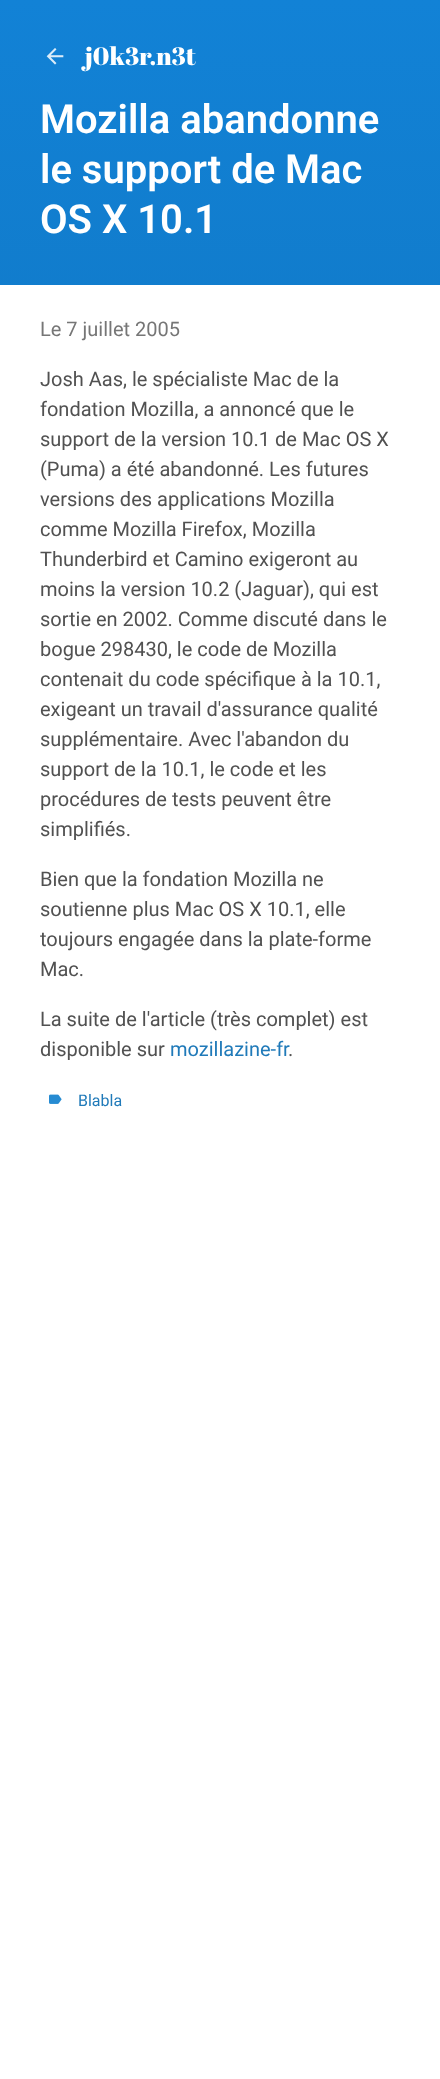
<svg xmlns="http://www.w3.org/2000/svg" width="440" height="2079">
	<defs>
		<linearGradient id="g1" gradientUnits="userSpaceOnUse" x1="220" y1="0" x2="220" y2="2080"><stop offset="0" stop-color="#1282D6" /><stop offset="1" stop-color="#0C5A94" /></linearGradient>
	</defs>
	<rect width="100%" height="100%" fill="#FFFFFF" />
	<rect x="0" y="0" width="440" height="285" fill="url(#g1)" />
	<image x="46" y="48" width="18" height="17" href="assets/img1.png" />
	<text x="85" y="65" font-family="Abril Fatface" font-size="25" fill="#FFFFFF">j0k3r.n3t</text>
	<g font-family="Roboto" font-size="40" font-weight="600" fill="#FFFFFF">
		<text x="40" y="133">Mozilla abandonne</text>
		<text x="40" y="183">le support de Mac</text>
		<text x="40" y="233">OS X 10.1</text>
	</g>
	<text x="40" y="336" font-family="Roboto" font-size="20" fill="#767676">Le 7 juillet 2005</text>
	<g font-family="Roboto" font-size="20" fill="#515151">
		<text x="40" y="386">Josh Aas, le spécialiste Mac de la</text>
		<text x="40" y="416">fondation Mozilla, a annoncé que le</text>
		<text x="40" y="446">support de la version 10.1 de Mac OS X</text>
		<text x="40" y="476">(Puma) a été abandonné. Les futures</text>
		<text x="40" y="506">versions des applications Mozilla</text>
		<text x="40" y="536">comme Mozilla Firefox, Mozilla</text>
		<text x="40" y="566">Thunderbird et Camino exigeront au</text>
		<text x="40" y="596">moins la version 10.2 (Jaguar), qui est</text>
		<text x="40" y="626">sortie en 2002. Comme discuté dans le</text>
		<text x="40" y="656">bogue 298430, le code de Mozilla</text>
		<text x="40" y="686">contenait du code spécifique à la 10.1,</text>
		<text x="40" y="716">exigeant un travail d'assurance qualité</text>
		<text x="40" y="746">supplémentaire. Avec l'abandon du</text>
		<text x="40" y="776">support de la 10.1, le code et les</text>
		<text x="40" y="806">procédures de tests peuvent être</text>
		<text x="40" y="836">simplifiés.</text>
		<text x="40" y="886">Bien que la fondation Mozilla ne</text>
		<text x="40" y="916">soutienne plus Mac OS X 10.1, elle</text>
		<text x="40" y="946">toujours engagée dans la plate-forme</text>
		<text x="40" y="976">Mac.</text>
		<text x="40" y="1026">La suite de l'article (très complet) est</text>
		<text x="40" y="1056">disponible sur</text>
	</g>
	<text x="170" y="1056" font-family="Roboto" font-size="20" fill="#207AB9">mozillazine-fr</text>
	<text x="288" y="1056" font-family="Roboto" font-size="20" fill="#515151">.</text>
	<image x="49" y="1094" width="13" height="10" href="assets/img2.png" />
	<text x="78" y="1106" font-family="Roboto" font-size="16" fill="#207AB9">Blabla</text>
</svg>
